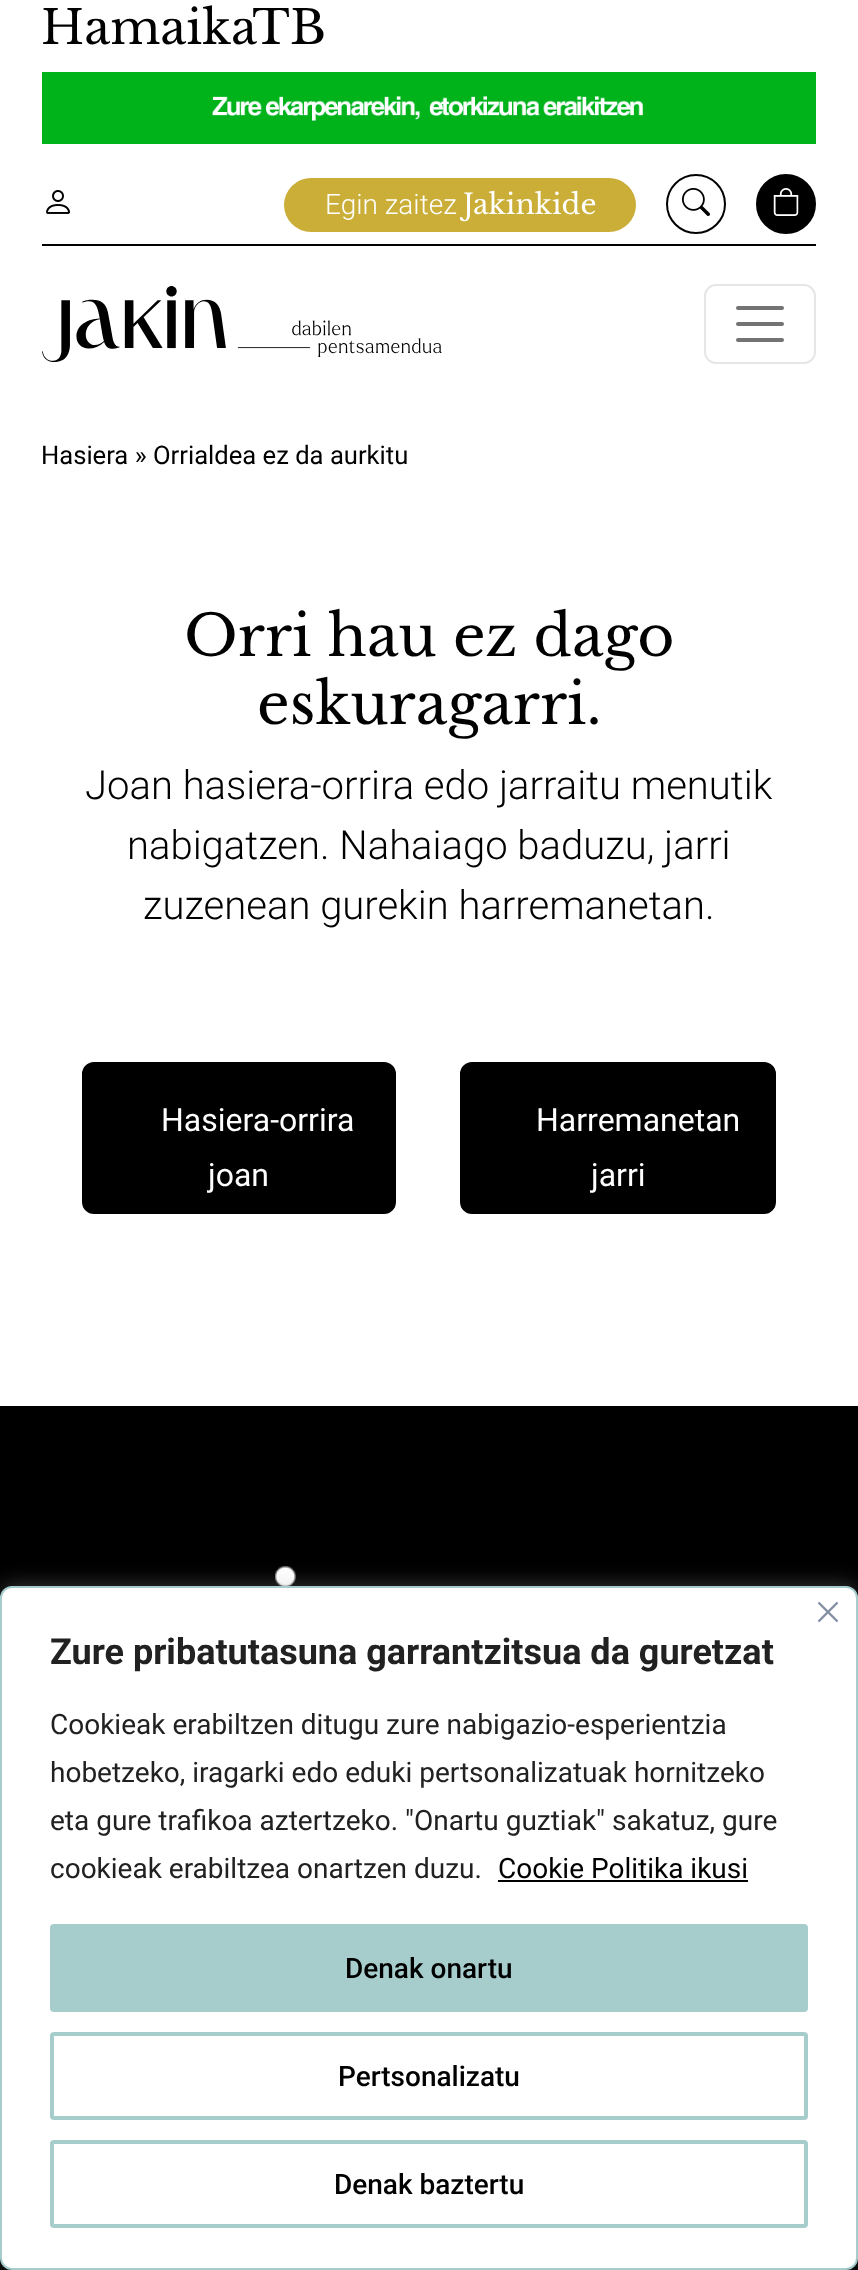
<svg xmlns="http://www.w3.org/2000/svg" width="858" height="2270">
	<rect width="100%" height="100%" fill="#FFFFFF" />
	<text x="41" y="44" font-family="Libre Baskerville" font-size="46.75" fill="#000000">HamaikaTB</text>
	<image x="42" y="72" width="774" height="72" href="assets/img1.png" />
	<rect x="42" y="244" width="774" height="2" fill="#000000" />
	<image x="46" y="190" width="24" height="24" href="assets/img2.png" />
	<rect x="284" y="178" width="352" height="54" rx="27" fill="#CAAE38" />
	<text x="325" y="214" font-family="Roboto" font-size="28" font-weight="300" fill="#FFFFFF">Egin zaitez</text>
	<text x="463" y="214" font-family="Libre Baskerville" font-size="28" fill="#FFFFFF">Jakinkide</text>
	<circle cx="696" cy="204" r="29" fill="none" stroke="#000000" stroke-width="2" />
	<image x="682" y="188" width="28" height="28" href="assets/img3.png" />
	<circle cx="786" cy="204" r="29" fill="#000000" stroke="#000000" stroke-width="2" />
	<image x="773" y="188" width="26" height="28" href="assets/img4.png" />
	<image x="42" y="286" width="400" height="76" href="assets/img5.png" />
	<rect x="705" y="285" width="110" height="78" rx="11" fill="none" stroke="#E6E6E6" stroke-width="2" />
	<path d="M738 308H782M738 324H782M738 340H782" fill="none" stroke="#737373" stroke-width="4" stroke-linecap="round" />
	<text x="41" y="464" font-family="Roboto" font-size="25.6" fill="#000000">Hasiera » Orrialdea ez da aurkitu</text>
	<g font-family="Libre Baskerville" font-size="56.9" fill="#000000">
		<text x="184" y="656">Orri hau ez dago</text>
		<text x="257" y="724">eskuragarri.</text>
	</g>
	<g font-family="Roboto" font-size="40" font-weight="300" fill="#000000">
		<text x="85" y="799">Joan hasiera-orrira edo jarraitu menutik</text>
		<text x="127" y="859">nabigatzen. Nahaiago baduzu, jarri</text>
		<text x="143" y="919">zuzenean gurekin harremanetan.</text>
	</g>
	<rect x="83" y="1063" width="312" height="150" rx="11" fill="#000000" stroke="#000000" stroke-width="2" />
	<g font-family="Roboto" font-size="32" fill="#FFFFFF">
		<text x="161" y="1131">Hasiera-orrira</text>
		<text x="208" y="1186">joan</text>
	</g>
	<rect x="461" y="1063" width="314" height="150" rx="11" fill="#000000" stroke="#000000" stroke-width="2" />
	<g font-family="Roboto" font-size="32" fill="#FFFFFF">
		<text x="536" y="1131">Harremanetan</text>
		<text x="591" y="1186">jarri</text>
	</g>
	<rect x="0" y="1406" width="858" height="864" fill="#000000" />
	<image x="275" y="1566" width="21" height="20" href="assets/img6.png" />
	<rect x="0" y="1584" width="858" height="684" rx="12" fill="#ACABAB" fill-opacity="0.3" filter="blur(10px)" />
	<rect x="1" y="1587" width="856" height="682" rx="11" fill="#FFFFFF" stroke="#A6CDCC" stroke-width="2" />
	<image x="818" y="1602" width="20" height="20" href="assets/img7.png" />
	<text x="50" y="1664" font-family="Roboto" font-size="36" font-weight="700" fill="#212121">Zure pribatutasuna garrantzitsua da guretzat</text>
	<g font-family="Roboto" font-size="28" fill="#212121">
		<text x="50" y="1734">Cookieak erabiltzen ditugu zure nabigazio-esperientzia</text>
		<text x="50" y="1782">hobetzeko, iragarki edo eduki pertsonalizatuak hornitzeko</text>
		<text x="50" y="1830">eta gure trafikoa aztertzeko. "Onartu guztiak" sakatuz, gure</text>
		<text x="50" y="1878">cookieak erabiltzea onartzen duzu.</text>
	</g>
	<text x="498" y="1878" font-family="Roboto" font-size="28" fill="#000000">Cookie Politika ikusi</text>
	<rect x="498" y="1880" width="250" height="2" fill="#000000" />
	<rect x="52" y="1926" width="754" height="84" rx="2" fill="#A6CDCC" stroke="#A6CDCC" stroke-width="4" />
	<text x="345" y="1978" font-family="Roboto" font-size="28" font-weight="500" fill="#000000">Denak onartu</text>
	<rect x="52" y="2034" width="754" height="84" rx="2" fill="none" stroke="#A6CDCC" stroke-width="4" />
	<text x="338" y="2086" font-family="Roboto" font-size="28" font-weight="500" fill="#000000">Pertsonalizatu</text>
	<rect x="52" y="2142" width="754" height="84" rx="2" fill="none" stroke="#A6CDCC" stroke-width="4" />
	<text x="334" y="2194" font-family="Roboto" font-size="28" font-weight="500" fill="#000000">Denak baztertu</text>
</svg>
